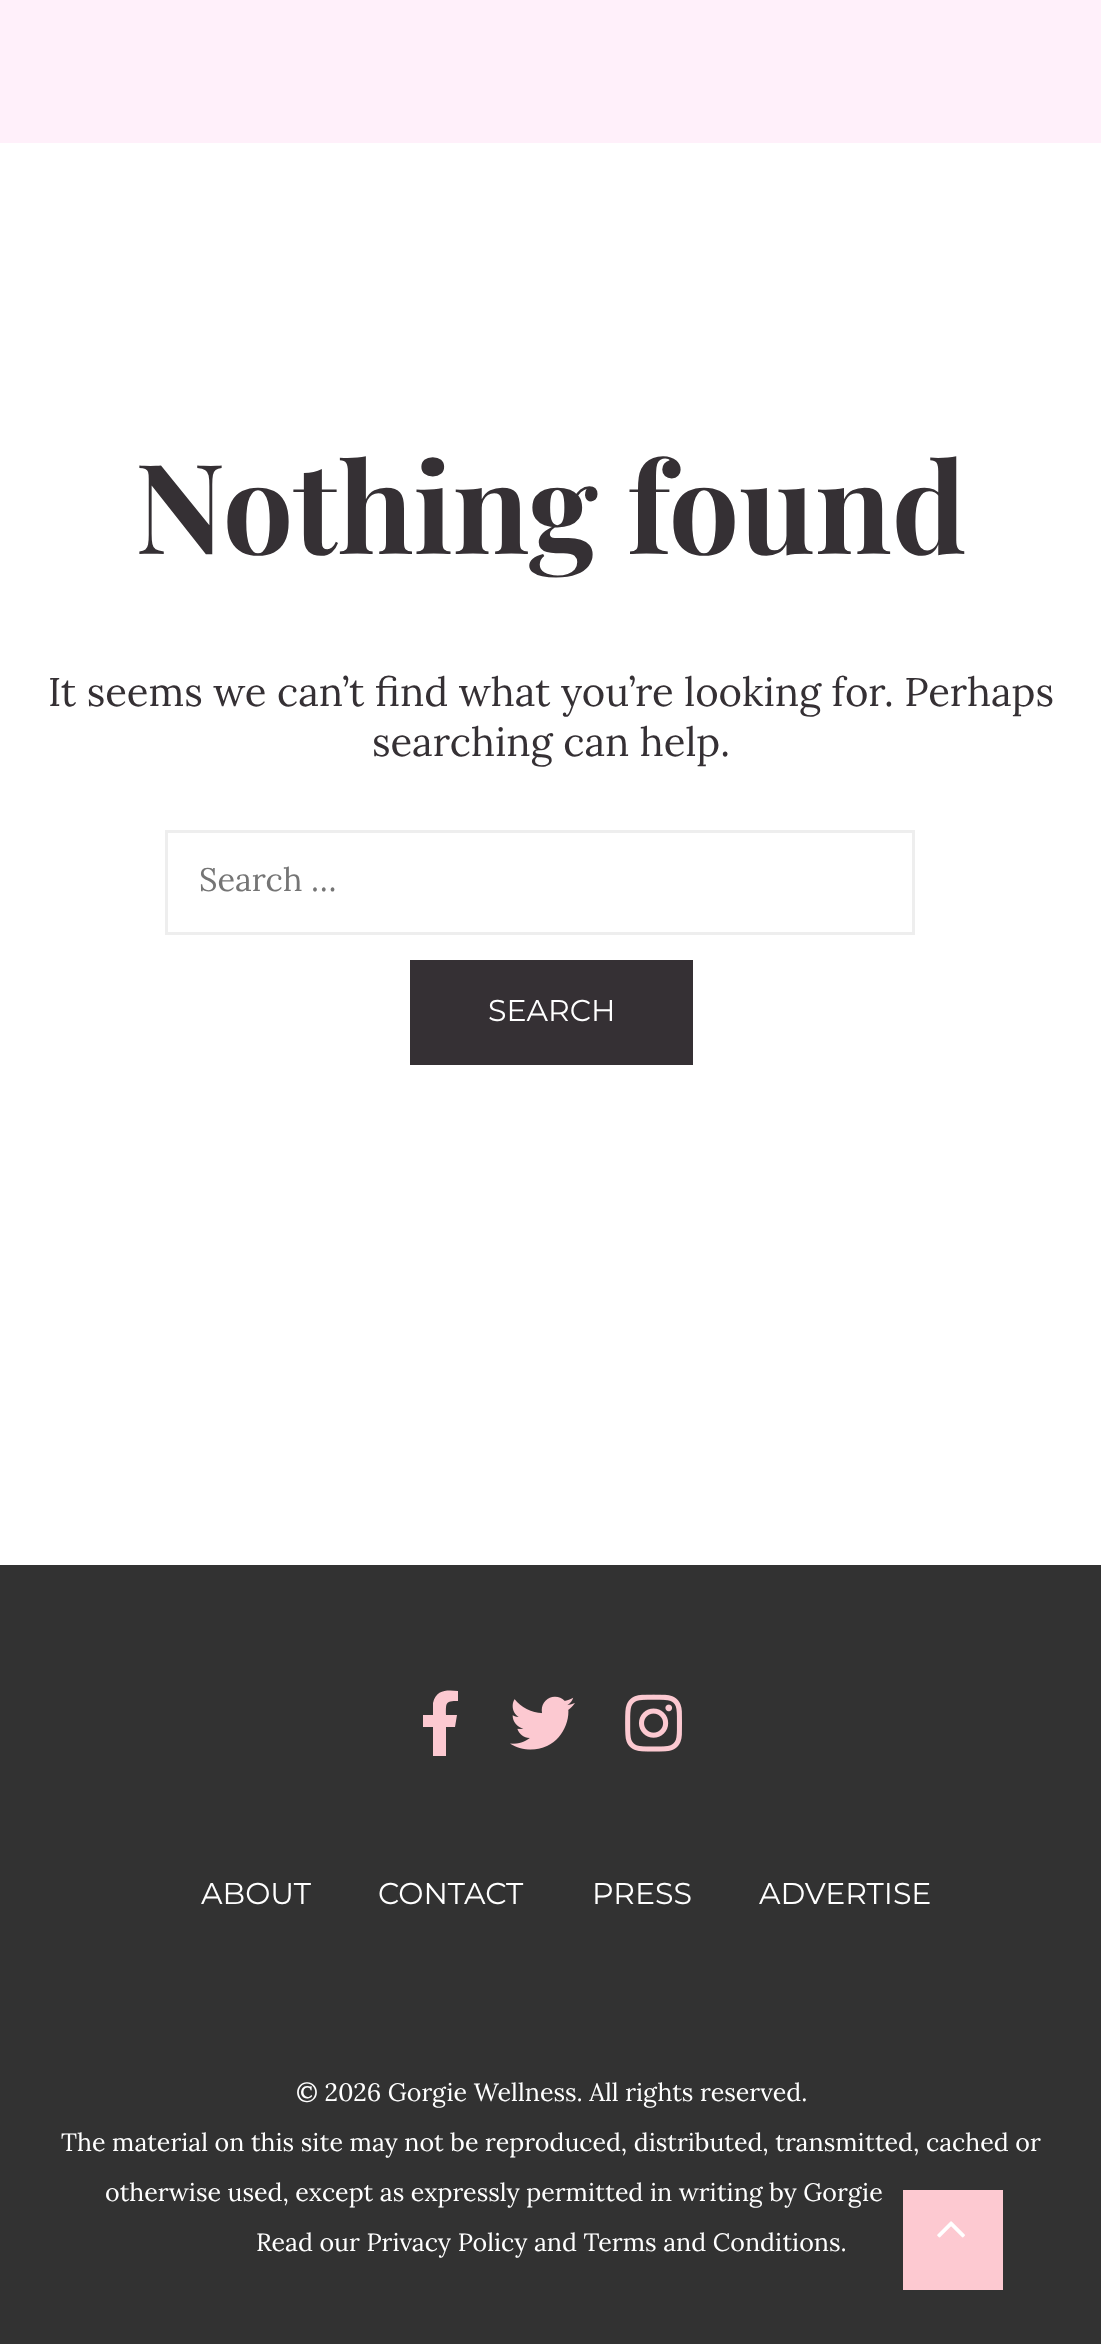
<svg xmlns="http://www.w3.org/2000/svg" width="1101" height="2344">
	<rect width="100%" height="100%" fill="#FFFFFF" />
	<rect x="0" y="0" width="1101" height="143" fill="#FFF0FA" />
	<text x="135" y="554" font-family="Playfair Display" font-size="125" font-weight="700" fill="#353034">Nothing found</text>
	<g font-family="Lora" font-size="40" fill="#353034">
		<text x="48" y="706">It seems we can’t find what you’re looking for. Perhaps</text>
		<text x="372" y="756">searching can help.</text>
	</g>
	<rect x="166.5" y="831.5" width="747" height="102" fill="none" stroke="#EEEEEE" stroke-width="3" />
	<text x="199" y="891" font-family="Lora" font-size="32.5" fill="#757575">Search …</text>
	<rect x="410" y="960" width="283" height="105" fill="#353034" />
	<text x="488" y="1021" font-family="Montserrat" font-size="30" font-weight="100" fill="#FFFFFF">SEARCH</text>
	<rect x="0" y="1565" width="1101" height="779" fill="#323232" />
	<path d="M455 1727H446V1756H433V1727H423V1715H433V1703C436 1689 448 1690 458 1691V1701C445 1701 446 1703 446 1715H457Z" fill="#FCC9D1" />
	<image x="510" y="1696" width="65" height="54" href="assets/img1.png" />
	<image x="625" y="1694" width="57" height="58" href="assets/img2.png" />
	<g font-family="Montserrat" font-size="30" font-weight="100" fill="#FFFFFF">
		<text x="201" y="1904">ABOUT</text>
		<text x="378" y="1904">CONTACT</text>
		<text x="592" y="1904">PRESS</text>
		<text x="759" y="1904">ADVERTISE</text>
	</g>
	<g font-family="Lora" font-size="25" fill="#FFFFFF">
		<text x="296" y="2101">© 2026 Gorgie Wellness. All rights reserved.</text>
		<text x="61" y="2151">The material on this site may not be reproduced, distributed, transmitted, cached or</text>
		<text x="105" y="2201">otherwise used, except as expressly permitted in writing by Gorgie</text>
		<text x="256" y="2251">Read our Privacy Policy and Terms and Conditions.</text>
	</g>
	<rect x="903" y="2190" width="100" height="100" fill="#FDC9D1" />
	<image x="937" y="2221" width="28" height="17" href="assets/img3.png" />
</svg>
